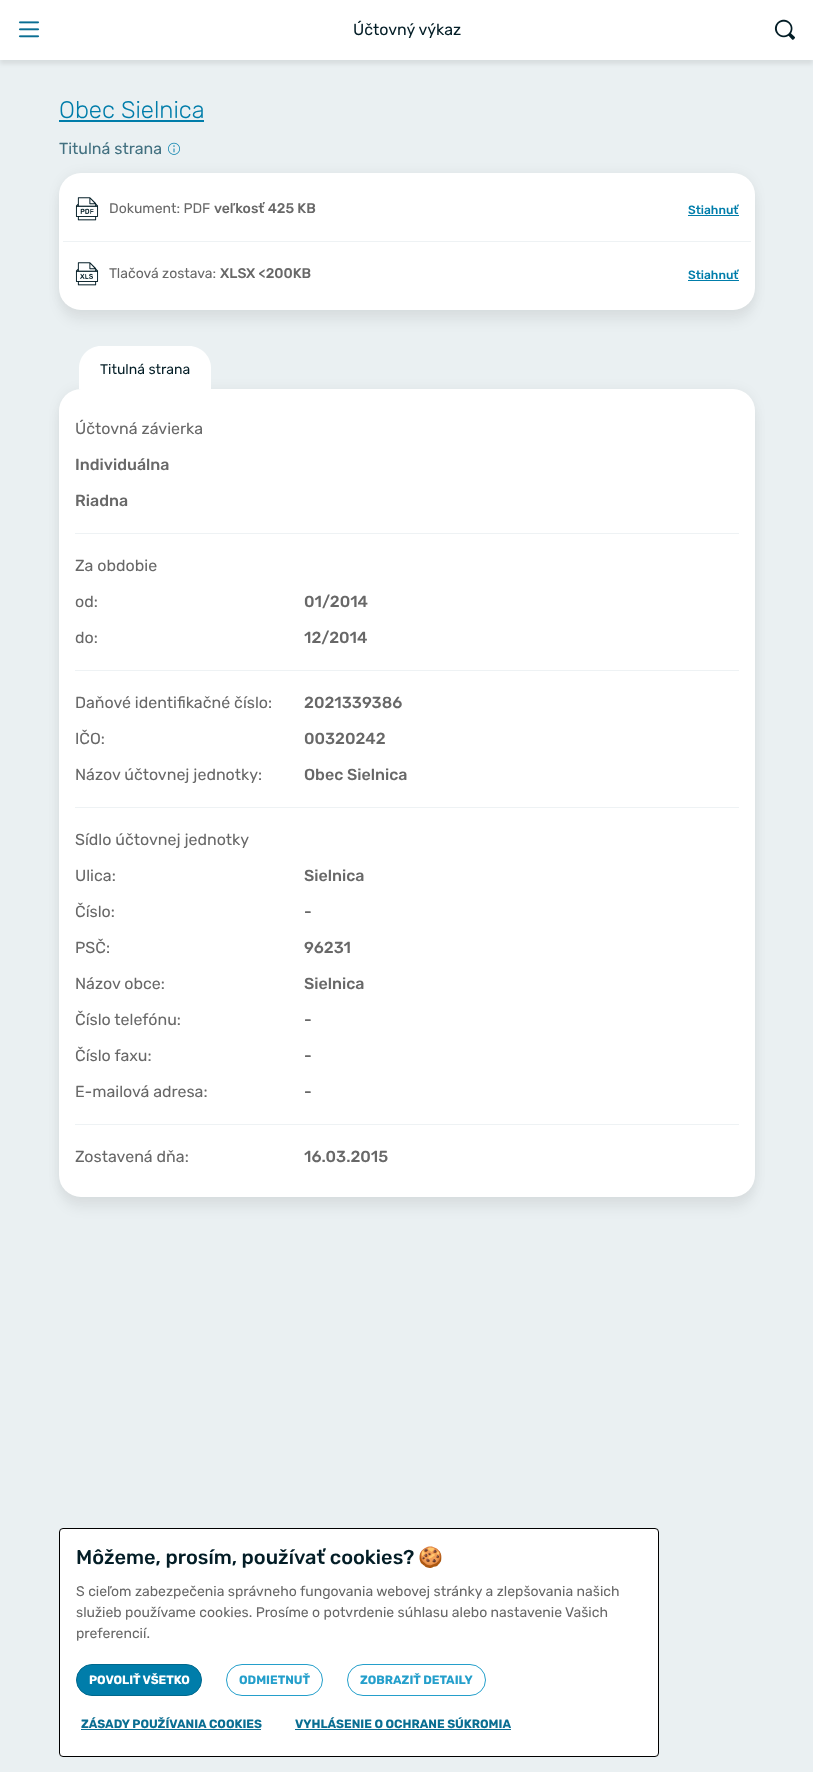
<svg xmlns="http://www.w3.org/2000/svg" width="813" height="1772">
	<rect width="100%" height="100%" fill="#EAF0F2" />
	<rect x="0" y="4" width="813" height="60" fill="#000000" fill-opacity="0.08" filter="blur(2px)" />
	<rect x="0" y="0" width="813" height="60" fill="#FFFFFF" />
	<image x="18" y="21" width="22" height="17" href="assets/img1.png" />
	<text x="353" y="35" font-family="Rubik" font-size="16" fill="#031D26">Účtovný výkaz</text>
	<image x="774" y="19" width="21" height="21" href="assets/img2.png" />
	<text x="59" y="118" font-family="Rubik" font-size="24" font-weight="300" fill="#007DAA">Obec Sielnica</text>
	<rect x="59" y="120" width="145" height="2" fill="#007DAA" />
	<rect x="59" y="173" width="696" height="137" rx="22" fill="#000000" fill-opacity="0.05" filter="blur(6px)" />
	<text x="59" y="154" font-family="Rubik" font-size="16" fill="#427080">Titulná strana</text>
	<image x="168" y="142" width="12" height="13" href="assets/img3.png" />
	<rect x="59" y="185" width="696" height="137" rx="22" fill="#000000" fill-opacity="0.05" filter="blur(6px)" />
	<rect x="59" y="173" width="696" height="137" rx="22" fill="#FFFFFF" />
	<image x="75" y="197" width="24" height="24" href="assets/img4.png" />
	<text x="109" y="213" font-family="Rubik" font-size="14" fill="#686868">Dokument: PDF</text>
	<text x="214" y="213" font-family="Rubik" font-size="14" font-weight="500" fill="#686868">veľkosť 425 KB</text>
	<text x="688" y="214" font-family="Rubik" font-size="12" font-weight="500" fill="#007DAA">Stiahnuť</text>
	<rect x="688" y="215" width="51" height="1" fill="#007DAA" />
	<rect x="63" y="241" width="688" height="1" fill="#EEF2F4" />
	<image x="75" y="262" width="24" height="24" href="assets/img5.png" />
	<text x="109" y="278" font-family="Rubik" font-size="14" fill="#686868">Tlačová zostava:</text>
	<text x="220" y="278" font-family="Rubik" font-size="14" font-weight="500" fill="#686868">XLSX &lt;200KB</text>
	<text x="688" y="279" font-family="Rubik" font-size="12" font-weight="500" fill="#007DAA">Stiahnuť</text>
	<rect x="688" y="280" width="51" height="1" fill="#007DAA" />
	<rect x="59" y="389" width="696" height="808" rx="22" fill="#000000" fill-opacity="0.05" filter="blur(6px)" />
	<rect x="59" y="401" width="696" height="808" rx="22" fill="#000000" fill-opacity="0.05" filter="blur(6px)" />
	<path d="M101 346H189C201 346 211 356 211 368V389H79V368C79 356 89 346 101 346Z" fill="#FFFFFF" />
	<text x="100" y="374" font-family="Rubik" font-size="14" fill="#031D26">Titulná strana</text>
	<rect x="59" y="389" width="696" height="808" rx="22" fill="#FFFFFF" />
	<text x="75" y="434" font-family="Rubik" font-size="16" fill="#686868">Účtovná závierka</text>
	<g font-family="Rubik" font-size="16" font-weight="500" fill="#686868">
		<text x="75" y="470">Individuálna</text>
		<text x="75" y="506">Riadna</text>
	</g>
	<rect x="75" y="533" width="664" height="1" fill="#EEF2F4" />
	<g font-family="Rubik" font-size="16" fill="#686868">
		<text x="75" y="571">Za obdobie</text>
		<text x="75" y="607">od:</text>
	</g>
	<text x="304" y="607" font-family="Rubik" font-size="16" font-weight="500" fill="#686868">01/2014</text>
	<text x="75" y="643" font-family="Rubik" font-size="16" fill="#686868">do:</text>
	<text x="304" y="643" font-family="Rubik" font-size="16" font-weight="500" fill="#686868">12/2014</text>
	<rect x="75" y="670" width="664" height="1" fill="#EEF2F4" />
	<text x="75" y="708" font-family="Rubik" font-size="16" fill="#686868">Daňové identifikačné číslo:</text>
	<text x="304" y="708" font-family="Rubik" font-size="16" font-weight="500" fill="#686868">2021339386</text>
	<text x="75" y="744" font-family="Rubik" font-size="16" fill="#686868">IČO:</text>
	<text x="304" y="744" font-family="Rubik" font-size="16" font-weight="500" fill="#686868">00320242</text>
	<text x="75" y="780" font-family="Rubik" font-size="16" fill="#686868">Názov účtovnej jednotky:</text>
	<text x="304" y="780" font-family="Rubik" font-size="16" font-weight="500" fill="#686868">Obec Sielnica</text>
	<rect x="75" y="807" width="664" height="1" fill="#EEF2F4" />
	<g font-family="Rubik" font-size="16" fill="#686868">
		<text x="75" y="845">Sídlo účtovnej jednotky</text>
		<text x="75" y="881">Ulica:</text>
	</g>
	<text x="304" y="881" font-family="Rubik" font-size="16" font-weight="500" fill="#686868">Sielnica</text>
	<text x="75" y="917" font-family="Rubik" font-size="16" fill="#686868">Číslo:</text>
	<text x="304" y="917" font-family="Rubik" font-size="16" font-weight="500" fill="#686868">-</text>
	<text x="75" y="953" font-family="Rubik" font-size="16" fill="#686868">PSČ:</text>
	<text x="304" y="953" font-family="Rubik" font-size="16" font-weight="500" fill="#686868">96231</text>
	<text x="75" y="989" font-family="Rubik" font-size="16" fill="#686868">Názov obce:</text>
	<text x="304" y="989" font-family="Rubik" font-size="16" font-weight="500" fill="#686868">Sielnica</text>
	<text x="75" y="1025" font-family="Rubik" font-size="16" fill="#686868">Číslo telefónu:</text>
	<text x="304" y="1025" font-family="Rubik" font-size="16" font-weight="500" fill="#686868">-</text>
	<text x="75" y="1061" font-family="Rubik" font-size="16" fill="#686868">Číslo faxu:</text>
	<text x="304" y="1061" font-family="Rubik" font-size="16" font-weight="500" fill="#686868">-</text>
	<text x="75" y="1097" font-family="Rubik" font-size="16" fill="#686868">E-mailová adresa:</text>
	<text x="304" y="1097" font-family="Rubik" font-size="16" font-weight="500" fill="#686868">-</text>
	<rect x="75" y="1124" width="664" height="1" fill="#EEF2F4" />
	<text x="75" y="1162" font-family="Rubik" font-size="16" fill="#686868">Zostavená dňa:</text>
	<text x="304" y="1162" font-family="Rubik" font-size="16" font-weight="500" fill="#686868">16.03.2015</text>
	<rect x="59.5" y="1528.5" width="599" height="228" rx="3.5" fill="#FFFFFF" stroke="#000000" />
	<text x="76" y="1564" font-family="Rubik" font-size="20" font-weight="500" fill="#031D26">Môžeme, prosím, používať cookies?</text>
	<text x="418" y="1564" font-family="Noto Color Emoji" font-size="20" fill="#031D26">🍪</text>
	<g font-family="Rubik" font-size="14" fill="#686868">
		<text x="76" y="1596">S cieľom zabezpečenia správneho fungovania webovej stránky a zlepšovania našich</text>
		<text x="76" y="1617">služieb používame cookies. Prosíme o potvrdenie súhlasu alebo nastavenie Vašich</text>
		<text x="76" y="1638">preferencií.</text>
	</g>
	<rect x="76.5" y="1664.5" width="125" height="31" rx="15.5" fill="#007DAA" stroke="#00688D" />
	<text x="89" y="1684" font-family="Rubik" font-size="12" font-weight="700" fill="#FFFFFF">POVOLIŤ VŠETKO</text>
	<rect x="226.5" y="1664.5" width="96" height="31" rx="15.5" fill="none" stroke="#249FCB" />
	<text x="239" y="1684" font-family="Rubik" font-size="12" font-weight="700" fill="#249FCB">ODMIETNUŤ</text>
	<rect x="347.5" y="1664.5" width="138" height="31" rx="15.5" fill="none" stroke="#249FCB" />
	<text x="360" y="1684" font-family="Rubik" font-size="12" font-weight="700" fill="#249FCB">ZOBRAZIŤ DETAILY</text>
	<text x="81" y="1728" font-family="Rubik" font-size="12" font-weight="700" fill="#0A6E92">ZÁSADY POUŽÍVANIA COOKIES</text>
	<rect x="81" y="1729" width="180" height="1" fill="#0A6E92" />
	<text x="295" y="1728" font-family="Rubik" font-size="12" font-weight="700" fill="#0A6E92">VYHLÁSENIE O OCHRANE SÚKROMIA</text>
	<rect x="295" y="1729" width="216" height="1" fill="#0A6E92" />
</svg>
